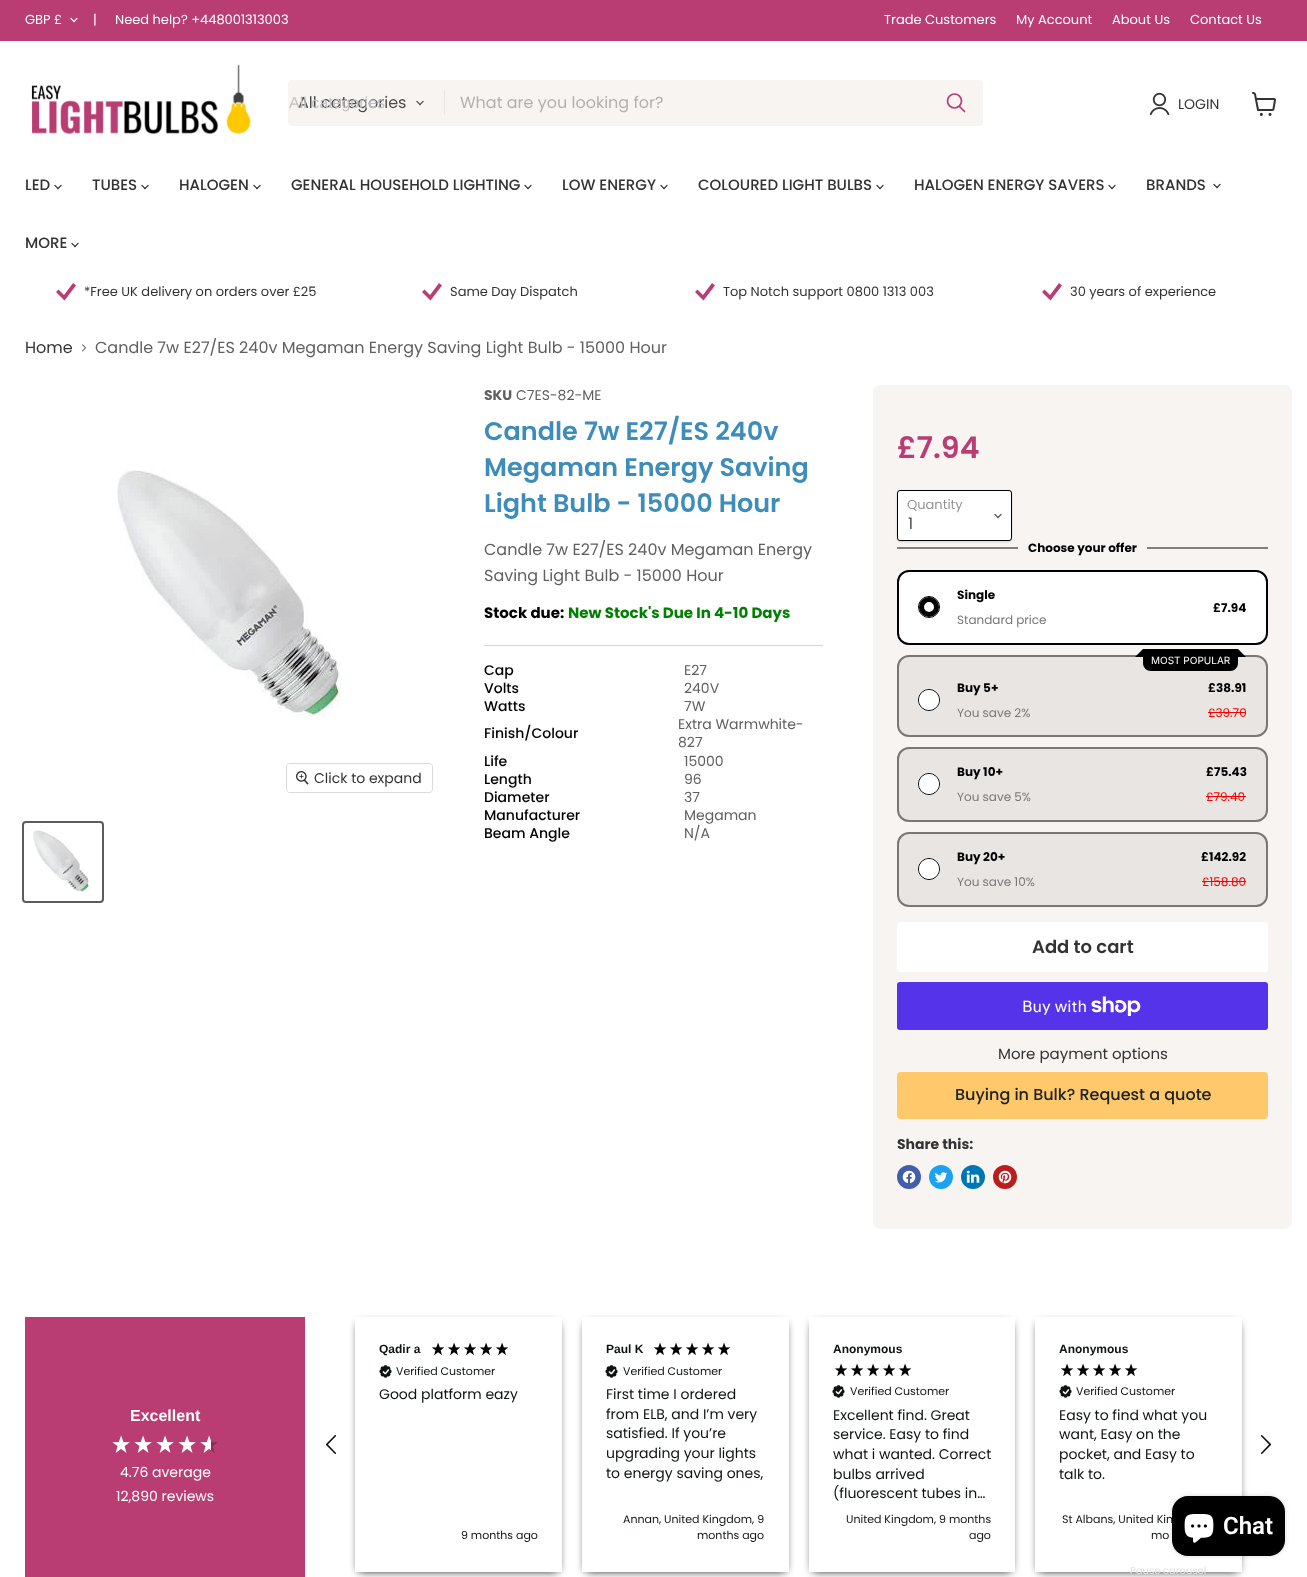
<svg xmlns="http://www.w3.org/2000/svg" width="1307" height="1577">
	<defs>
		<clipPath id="clip1"><path d="M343 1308H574V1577H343ZM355 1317H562V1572H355Z" clip-rule="evenodd" /></clipPath>
		<clipPath id="clip2"><path d="M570 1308H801V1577H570ZM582 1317H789V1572H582Z" clip-rule="evenodd" /></clipPath>
		<clipPath id="clip3"><path d="M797 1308H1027V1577H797ZM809 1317H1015V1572H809Z" clip-rule="evenodd" /></clipPath>
		<clipPath id="clip4"><path d="M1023 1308H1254V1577H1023ZM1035 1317H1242V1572H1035Z" clip-rule="evenodd" /></clipPath>
	</defs>
	<rect width="100%" height="100%" fill="#FFFFFF" />
	<rect x="0" y="0" width="1307" height="41" fill="#B93D73" />
	<text x="25" y="24" font-family="Poppins" font-size="13" fill="#FFFFFF">GBP £</text>
	<image x="70" y="17" width="8" height="6" href="assets/img1.png" />
	<g font-family="Poppins" font-size="13" fill="#FFFFFF">
		<text x="93" y="24">|</text>
		<text x="115" y="24">Need help? +448001313003</text>
		<text x="884" y="24">Trade Customers</text>
		<text x="1016" y="24">My Account</text>
		<text x="1112" y="24">About Us</text>
		<text x="1190" y="24">Contact Us</text>
	</g>
	<image x="31" y="64" width="220" height="71" href="assets/img2.png" />
	<path d="M291 80H434V126H291C289.5 126 288 124.5 288 123V83C288 81.5 289.5 80 291 80Z" fill="#F7F4F2" />
	<text x="298" y="108" font-family="Poppins" font-size="16" fill="#4D4D4D">All categories</text>
	<text x="289" y="108" font-family="Liberation Sans" font-size="16" fill="#C4C2C1">All categories</text>
	<image x="416" y="100" width="8" height="6" href="assets/img3.png" />
	<rect x="434" y="80" width="495" height="46" fill="#F7F4F2" />
	<rect x="444" y="90" width="1" height="25" fill="#E9E7E6" />
	<text x="460" y="108" font-family="Poppins" font-size="16" fill="#B3B1B0">What are you looking for?</text>
	<path d="M929.5 80.5H980C981.5 80.5 982.5 81.5 982.5 83V123C982.5 124.5 981.5 125.5 980 125.5H929.5Z" fill="#F7F4F2" stroke="#F7F4F2" />
	<path d="M964.5 111.5L959.5 106.5" fill="none" stroke="#B93D73" stroke-width="1.7" stroke-linecap="round" />
	<circle cx="954.5" cy="101" r="7" fill="none" stroke="#B93D73" stroke-width="1.7" />
	<image x="1149" y="92" width="21" height="24" href="assets/img4.png" />
	<text x="1178" y="109" font-family="Poppins" font-size="14" fill="#333333">LOGIN</text>
	<image x="1252" y="92" width="24" height="24" href="assets/img5.png" />
	<text x="25" y="190" font-family="Poppins" font-size="15" font-weight="500" fill="#333333">LED</text>
	<image x="54" y="184" width="8" height="6" href="assets/img6.png" />
	<text x="92" y="190" font-family="Poppins" font-size="15" font-weight="500" fill="#333333">TUBES</text>
	<image x="141" y="184" width="8" height="6" href="assets/img6.png" />
	<text x="179" y="190" font-family="Poppins" font-size="15" font-weight="500" fill="#333333">HALOGEN</text>
	<image x="253" y="184" width="8" height="6" href="assets/img6.png" />
	<text x="291" y="190" font-family="Poppins" font-size="15" font-weight="500" fill="#333333">GENERAL HOUSEHOLD LIGHTING</text>
	<image x="524" y="184" width="8" height="6" href="assets/img6.png" />
	<text x="562" y="190" font-family="Poppins" font-size="15" font-weight="500" fill="#333333">LOW ENERGY</text>
	<image x="660" y="184" width="8" height="6" href="assets/img6.png" />
	<text x="698" y="190" font-family="Poppins" font-size="15" font-weight="500" fill="#333333">COLOURED LIGHT BULBS</text>
	<image x="876" y="184" width="8" height="6" href="assets/img6.png" />
	<text x="914" y="190" font-family="Poppins" font-size="15" font-weight="500" fill="#333333">HALOGEN ENERGY SAVERS</text>
	<image x="1108" y="184" width="8" height="6" href="assets/img6.png" />
	<text x="1146" y="190" font-family="Poppins" font-size="15" font-weight="500" fill="#333333">BRANDS</text>
	<image x="1213" y="183" width="8" height="6" href="assets/img6.png" />
	<text x="25" y="248" font-family="Poppins" font-size="15" font-weight="500" fill="#333333">MORE</text>
	<image x="71" y="242" width="8" height="6" href="assets/img6.png" />
	<path d="M73 283L64 295L58.5 289.5L56 292L64.5 300.5L76 285.5Z" fill="#B93D73" />
	<text x="84" y="296" font-family="Poppins" font-size="13" fill="#333333">*Free UK delivery on orders over £25</text>
	<path d="M439 283L430 295L424.5 289.5L422 292L430.5 300.5L442 285.5Z" fill="#B93D73" />
	<text x="450" y="296" font-family="Poppins" font-size="13" fill="#333333">Same Day Dispatch</text>
	<path d="M712 283L703 295L697.5 289.5L695 292L703.5 300.5L715 285.5Z" fill="#B93D73" />
	<text x="723" y="296" font-family="Poppins" font-size="13" fill="#333333">Top Notch support 0800 1313 003</text>
	<path d="M1059 283L1050 295L1044.5 289.5L1042 292L1050.5 300.5L1062 285.5Z" fill="#B93D73" />
	<text x="1070" y="296" font-family="Poppins" font-size="13" fill="#333333">30 years of experience</text>
	<text x="25" y="353" font-family="Poppins" font-size="16" fill="#333333">Home</text>
	<image x="82" y="344" width="4" height="8" href="assets/img7.png" />
	<text x="95" y="353" font-family="Poppins" font-size="16" fill="#606060">Candle 7w E27/ES 240v Megaman Energy Saving Light Bulb - 15000 Hour</text>
	<image x="117" y="469" width="224" height="248" href="assets/img8.png" />
	<rect x="286.5" y="763.5" width="146" height="29" rx="3.5" fill="none" stroke="#D9D9D9" />
	<rect x="287" y="764" width="145" height="28" rx="3" fill="#FFFFFF" fill-opacity="0.9" />
	<image x="296" y="771" width="13" height="14" href="assets/img9.png" />
	<text x="314" y="783" font-family="Poppins" font-size="14" fill="#333333">Click to expand</text>
	<rect x="23" y="822" width="80" height="80" rx="3" fill="none" stroke="#5C5C5C" stroke-width="2" />
	<image x="33" y="828" width="57" height="65" href="assets/img10.png" />
	<text x="484" y="400" font-family="Poppins" font-size="14" font-weight="700" fill="#606060">SKU</text>
	<text x="516" y="400" font-family="Poppins" font-size="14" fill="#606060">C7ES-82-ME</text>
	<g font-family="Poppins" font-size="25.5" font-weight="600" fill="#3D8CB9">
		<text x="484" y="440">Candle 7w E27/ES 240v</text>
		<text x="484" y="476">Megaman Energy Saving</text>
		<text x="484" y="512">Light Bulb - 15000 Hour</text>
	</g>
	<g font-family="Poppins" font-size="16" fill="#606060">
		<text x="484" y="555">Candle 7w E27/ES 240v Megaman Energy</text>
		<text x="484" y="581">Saving Light Bulb - 15000 Hour</text>
	</g>
	<text x="484" y="618" font-family="Poppins" font-size="15" font-weight="700" fill="#000000">Stock due:</text>
	<text x="568" y="618" font-family="Poppins" font-size="15" font-weight="700" fill="#008000">New Stock's Due In 4-10 Days</text>
	<rect x="484" y="645" width="339" height="1" fill="#D4D4D4" />
	<text x="484" y="675" font-family="Poppins" font-size="14" font-weight="500" fill="#000000">Cap</text>
	<text x="684" y="675" font-family="Poppins" font-size="14" fill="#606060">E27</text>
	<text x="484" y="693" font-family="Poppins" font-size="14" font-weight="500" fill="#000000">Volts</text>
	<text x="684" y="693" font-family="Poppins" font-size="14" fill="#606060">240V</text>
	<text x="484" y="711" font-family="Poppins" font-size="14" font-weight="500" fill="#000000">Watts</text>
	<text x="684" y="711" font-family="Poppins" font-size="14" fill="#606060">7W</text>
	<text x="484" y="738" font-family="Poppins" font-size="14" font-weight="500" fill="#000000">Finish/Colour</text>
	<g font-family="Poppins" font-size="14" fill="#606060">
		<text x="678" y="729">Extra Warmwhite-</text>
		<text x="678" y="747">827</text>
	</g>
	<text x="484" y="766" font-family="Poppins" font-size="14" font-weight="500" fill="#000000">Life</text>
	<text x="684" y="766" font-family="Poppins" font-size="14" fill="#606060">15000</text>
	<text x="484" y="784" font-family="Poppins" font-size="14" font-weight="500" fill="#000000">Length</text>
	<text x="684" y="784" font-family="Poppins" font-size="14" fill="#606060">96</text>
	<text x="484" y="802" font-family="Poppins" font-size="14" font-weight="500" fill="#000000">Diameter</text>
	<text x="684" y="802" font-family="Poppins" font-size="14" fill="#606060">37</text>
	<text x="484" y="820" font-family="Poppins" font-size="14" font-weight="500" fill="#000000">Manufacturer</text>
	<text x="684" y="820" font-family="Poppins" font-size="14" fill="#606060">Megaman</text>
	<text x="484" y="838" font-family="Poppins" font-size="14" font-weight="500" fill="#000000">Beam Angle</text>
	<text x="684" y="838" font-family="Poppins" font-size="14" fill="#606060">N/A</text>
	<rect x="873" y="385" width="419" height="844" rx="8" fill="#F7F4F2" />
	<text x="897" y="458" font-family="Poppins" font-size="30" font-weight="600" fill="#B93D73">£7.94</text>
	<rect x="897" y="491" width="115" height="51" rx="3" fill="#000000" fill-opacity="0.15" filter="blur(1px)" />
	<rect x="897.5" y="490.5" width="114" height="50" rx="2.5" fill="#FFFFFF" stroke="#000000" />
	<text x="907" y="509" font-family="Poppins" font-size="13" fill="#949494">Quantity</text>
	<image x="994" y="513" width="8" height="6" href="assets/img11.png" />
	<text x="908" y="529" font-family="Poppins" font-size="16" fill="#4D4D4D">1</text>
	<rect x="897" y="547" width="121" height="2" fill="#807F7E" />
	<text x="1028" y="552" font-family="Poppins" font-size="12" font-weight="700" fill="#000000">Choose your offer</text>
	<rect x="1147" y="547" width="121" height="2" fill="#807F7E" />
	<rect x="898" y="571" width="369" height="73" rx="11" fill="#FFFFFF" stroke="#000000" stroke-width="2" />
	<circle cx="929" cy="607" r="10.5" fill="none" stroke="#000000" />
	<circle cx="929" cy="607" r="7.5" fill="#FFFFFF" stroke="#000000" stroke-width="5" />
	<text x="957" y="599" font-family="Poppins" font-size="12" font-weight="700" fill="#000000">Single</text>
	<text x="957" y="624" font-family="Poppins" font-size="12" fill="#777777">Standard price</text>
	<text x="1213" y="612" font-family="Poppins" font-size="12" font-weight="700" fill="#000000">£7.94</text>
	<rect x="897" y="655" width="371" height="82" rx="12" fill="#E8E5E3" />
	<rect x="898" y="656" width="369" height="80" rx="11" fill="none" stroke="#000000" stroke-opacity="0.48" stroke-width="2" />
	<path d="M1143 649H1238V663C1238 667.5 1234.5 671 1230 671H1151C1146.5 671 1143 667.5 1143 663Z" fill="#000000" />
	<path d="M1143 657H1135L1143 649Z" fill="#000000" />
	<path d="M1246 657H1238V649Z" fill="#000000" />
	<text x="1151" y="664" font-family="Inter" font-size="10" fill="#FFFFFF">MOST POPULAR</text>
	<circle cx="929" cy="700" r="10.5" fill="none" stroke="#000000" />
	<circle cx="929" cy="700" r="8.5" fill="#FFFFFF" stroke="#FFFFFF" stroke-width="3" />
	<text x="957" y="692" font-family="Poppins" font-size="12" font-weight="700" fill="#000000">Buy 5+</text>
	<text x="957" y="717" font-family="Poppins" font-size="12" fill="#777777">You save 2%</text>
	<text x="1208" y="692" font-family="Poppins" font-size="12" font-weight="700" fill="#000000">£38.91</text>
	<text x="1208" y="717" font-family="Poppins" font-size="12" fill="#FF0000">£39.70</text>
	<rect x="1208" y="712" width="38" height="1" fill="#FF0000" />
	<rect x="897" y="747" width="371" height="75" rx="12" fill="#E8E5E3" />
	<rect x="898" y="748" width="369" height="73" rx="11" fill="none" stroke="#000000" stroke-opacity="0.48" stroke-width="2" />
	<circle cx="929" cy="784" r="10.5" fill="none" stroke="#000000" />
	<circle cx="929" cy="784" r="8.5" fill="#FFFFFF" stroke="#FFFFFF" stroke-width="3" />
	<text x="957" y="776" font-family="Poppins" font-size="12" font-weight="700" fill="#000000">Buy 10+</text>
	<text x="957" y="801" font-family="Poppins" font-size="12" fill="#777777">You save 5%</text>
	<text x="1206" y="776" font-family="Poppins" font-size="12" font-weight="700" fill="#000000">£75.43</text>
	<text x="1206" y="801" font-family="Poppins" font-size="12" fill="#FF0000">£79.40</text>
	<rect x="1206" y="796" width="40" height="1" fill="#FF0000" />
	<rect x="897" y="832" width="371" height="75" rx="12" fill="#E8E5E3" />
	<rect x="898" y="833" width="369" height="73" rx="11" fill="none" stroke="#000000" stroke-opacity="0.48" stroke-width="2" />
	<circle cx="929" cy="869" r="10.5" fill="none" stroke="#000000" />
	<circle cx="929" cy="869" r="8.5" fill="#FFFFFF" stroke="#FFFFFF" stroke-width="3" />
	<text x="957" y="861" font-family="Poppins" font-size="12" font-weight="700" fill="#000000">Buy 20+</text>
	<text x="957" y="886" font-family="Poppins" font-size="12" fill="#777777">You save 10%</text>
	<text x="1201" y="861" font-family="Poppins" font-size="12" font-weight="700" fill="#000000">£142.92</text>
	<text x="1202" y="886" font-family="Poppins" font-size="12" fill="#FF0000">£158.80</text>
	<rect x="1202" y="881" width="44" height="1" fill="#FF0000" />
	<rect x="897.5" y="922.5" width="370" height="49" rx="2.5" fill="#FFFFFF" stroke="#FFFFFF" />
	<text x="1032" y="953" font-family="Poppins" font-size="18" font-weight="600" fill="#333333">Add to cart</text>
	<rect x="897" y="982" width="371" height="48" rx="3" fill="#5433EB" />
	<text x="1022" y="1012" font-family="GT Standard" font-size="16" fill="#FFFFFF">Buy with</text>
	<image x="1091" y="996" width="50" height="20" href="assets/img12.png" />
	<text x="998" y="1059" font-family="Poppins" font-size="15" fill="#333333">More payment options</text>
	<rect x="897" y="1072" width="371" height="47" rx="4" fill="#FFC96B" />
	<text x="955" y="1100" font-family="Poppins" font-size="16" font-weight="500" fill="#202223">Buying in Bulk? Request a quote</text>
	<text x="897" y="1149" font-family="Poppins" font-size="14" font-weight="700" fill="#333333">Share this:</text>
	<circle cx="909" cy="1177" r="12" fill="#425DAB" />
	<image x="902" y="1170" width="14" height="14" href="assets/img13.png" />
	<circle cx="941" cy="1177" r="12" fill="#1DA1F2" />
	<image x="935" y="1172" width="13" height="11" href="assets/img14.png" />
	<circle cx="973" cy="1177" r="12" fill="#0077B5" />
	<image x="966" y="1170" width="14" height="13" href="assets/img15.png" />
	<circle cx="1005" cy="1177" r="12" fill="#BD1C1C" />
	<image x="998" y="1170" width="14" height="14" href="assets/img16.png" />
	<rect x="25" y="1317" width="280" height="260" fill="#B93D73" />
	<text x="130" y="1421" font-family="Liberation Sans" font-size="16" font-weight="700" fill="#FFFFFF">Excellent</text>
	<image x="112" y="1435" width="18" height="18" href="assets/img17.png" />
	<image x="134" y="1435" width="18" height="18" href="assets/img17.png" />
	<image x="156" y="1435" width="18" height="18" href="assets/img17.png" />
	<image x="178" y="1435" width="18" height="18" href="assets/img17.png" />
	<image x="200" y="1435" width="18" height="18" href="assets/img18.png" />
	<g font-family="Poppins" font-size="14" fill="#FFFFFF">
		<text x="120" y="1477">4.76 average</text>
		<text x="116" y="1501">12,890 reviews</text>
	</g>
	<image x="325" y="1435" width="12" height="19" href="assets/img19.png" />
	<g clip-path="url(#clip1)">
		<rect x="359" y="1324" width="199" height="247" fill="#000000" filter="blur(5px)" />
	</g>
	<text x="379" y="1353" font-family="Liberation Sans" font-size="12" font-weight="700" fill="#0E1311">Qadir a</text>
	<image x="431" y="1342" width="14" height="14" href="assets/img20.png" />
	<image x="447" y="1342" width="14" height="14" href="assets/img20.png" />
	<image x="463" y="1342" width="14" height="14" href="assets/img20.png" />
	<image x="479" y="1342" width="14" height="14" href="assets/img20.png" />
	<image x="495" y="1342" width="14" height="14" href="assets/img20.png" />
	<image x="379" y="1365" width="13" height="13" href="assets/img21.png" />
	<text x="396" y="1375" font-family="Poppins" font-size="11" fill="#0E1311">Verified Customer</text>
	<text x="379" y="1399" font-family="Poppins" font-size="14" fill="#0E1311">Good platform eazy</text>
	<text x="461" y="1539" font-family="Poppins" font-size="11" fill="#0E1311">9 months ago</text>
	<g clip-path="url(#clip2)">
		<rect x="586" y="1324" width="199" height="247" fill="#000000" filter="blur(5px)" />
	</g>
	<text x="606" y="1353" font-family="Liberation Sans" font-size="12" font-weight="700" fill="#0E1311">Paul K</text>
	<image x="653" y="1342" width="14" height="14" href="assets/img20.png" />
	<image x="669" y="1342" width="14" height="14" href="assets/img20.png" />
	<image x="685" y="1342" width="14" height="14" href="assets/img20.png" />
	<image x="701" y="1342" width="14" height="14" href="assets/img20.png" />
	<image x="717" y="1342" width="14" height="14" href="assets/img20.png" />
	<image x="605" y="1365" width="13" height="13" href="assets/img21.png" />
	<text x="623" y="1375" font-family="Poppins" font-size="11" fill="#0E1311">Verified Customer</text>
	<g font-family="Poppins" font-size="14" fill="#0E1311">
		<text x="606" y="1399">First time I ordered</text>
		<text x="606" y="1419">from ELB, and I’m very</text>
		<text x="606" y="1438">satisfied. If you’re</text>
		<text x="606" y="1458">upgrading your lights</text>
		<text x="606" y="1478">to energy saving ones,</text>
	</g>
	<g font-family="Poppins" font-size="11" fill="#0E1311">
		<text x="623" y="1523">Annan, United Kingdom, 9</text>
		<text x="697" y="1539">months ago</text>
	</g>
	<g clip-path="url(#clip3)">
		<rect x="813" y="1324" width="198" height="247" fill="#000000" filter="blur(5px)" />
	</g>
	<text x="833" y="1353" font-family="Liberation Sans" font-size="12" font-weight="700" fill="#0E1311">Anonymous</text>
	<image x="834" y="1363" width="14" height="14" href="assets/img20.png" />
	<image x="850" y="1363" width="14" height="14" href="assets/img20.png" />
	<image x="866" y="1363" width="14" height="14" href="assets/img20.png" />
	<image x="882" y="1363" width="14" height="14" href="assets/img20.png" />
	<image x="898" y="1363" width="14" height="14" href="assets/img20.png" />
	<image x="832" y="1385" width="13" height="13" href="assets/img21.png" />
	<text x="850" y="1395" font-family="Poppins" font-size="11" fill="#0E1311">Verified Customer</text>
	<g font-family="Poppins" font-size="14" fill="#0E1311">
		<text x="833" y="1420">Excellent find. Great</text>
		<text x="833" y="1439">service. Easy to find</text>
		<text x="833" y="1459">what i wanted. Correct</text>
		<text x="833" y="1479">bulbs arrived</text>
		<text x="833" y="1498">(fluorescent tubes in…</text>
	</g>
	<g font-family="Poppins" font-size="11" fill="#0E1311">
		<text x="846" y="1523">United Kingdom, 9 months</text>
		<text x="969" y="1539">ago</text>
	</g>
	<g clip-path="url(#clip4)">
		<rect x="1039" y="1324" width="199" height="247" fill="#000000" filter="blur(5px)" />
	</g>
	<text x="1059" y="1353" font-family="Liberation Sans" font-size="12" font-weight="700" fill="#0E1311">Anonymous</text>
	<image x="1060" y="1363" width="14" height="14" href="assets/img20.png" />
	<image x="1076" y="1363" width="14" height="14" href="assets/img20.png" />
	<image x="1092" y="1363" width="14" height="14" href="assets/img20.png" />
	<image x="1108" y="1363" width="14" height="14" href="assets/img20.png" />
	<image x="1124" y="1363" width="14" height="14" href="assets/img20.png" />
	<image x="1059" y="1385" width="13" height="13" href="assets/img21.png" />
	<text x="1076" y="1395" font-family="Poppins" font-size="11" fill="#0E1311">Verified Customer</text>
	<g font-family="Poppins" font-size="14" fill="#0E1311">
		<text x="1059" y="1420">Easy to find what you</text>
		<text x="1059" y="1439">want, Easy on the</text>
		<text x="1059" y="1459">pocket, and Easy to</text>
		<text x="1059" y="1479">talk to.</text>
	</g>
	<g font-family="Poppins" font-size="11" fill="#0E1311">
		<text x="1062" y="1523">St Albans, United Kin</text>
		<text x="1151" y="1539">mo</text>
	</g>
	<image x="1260" y="1435" width="12" height="19" href="assets/img22.png" />
	<text x="1130" y="1574" font-family="Poppins" font-size="10" fill="#E2E2E2">Pause carousel</text>
	<rect x="1172" y="1496" width="113" height="60" rx="16" fill="#000000" fill-opacity="0.15" filter="blur(2.5px)" />
	<rect x="1172" y="1496" width="113" height="60" rx="16" fill="#000000" />
	<image x="1184" y="1514" width="30" height="29" href="assets/img23.png" />
	<text x="1223" y="1534" font-family="Roboto" font-size="24" font-weight="600" fill="#FFFFFF">Chat</text>
</svg>
